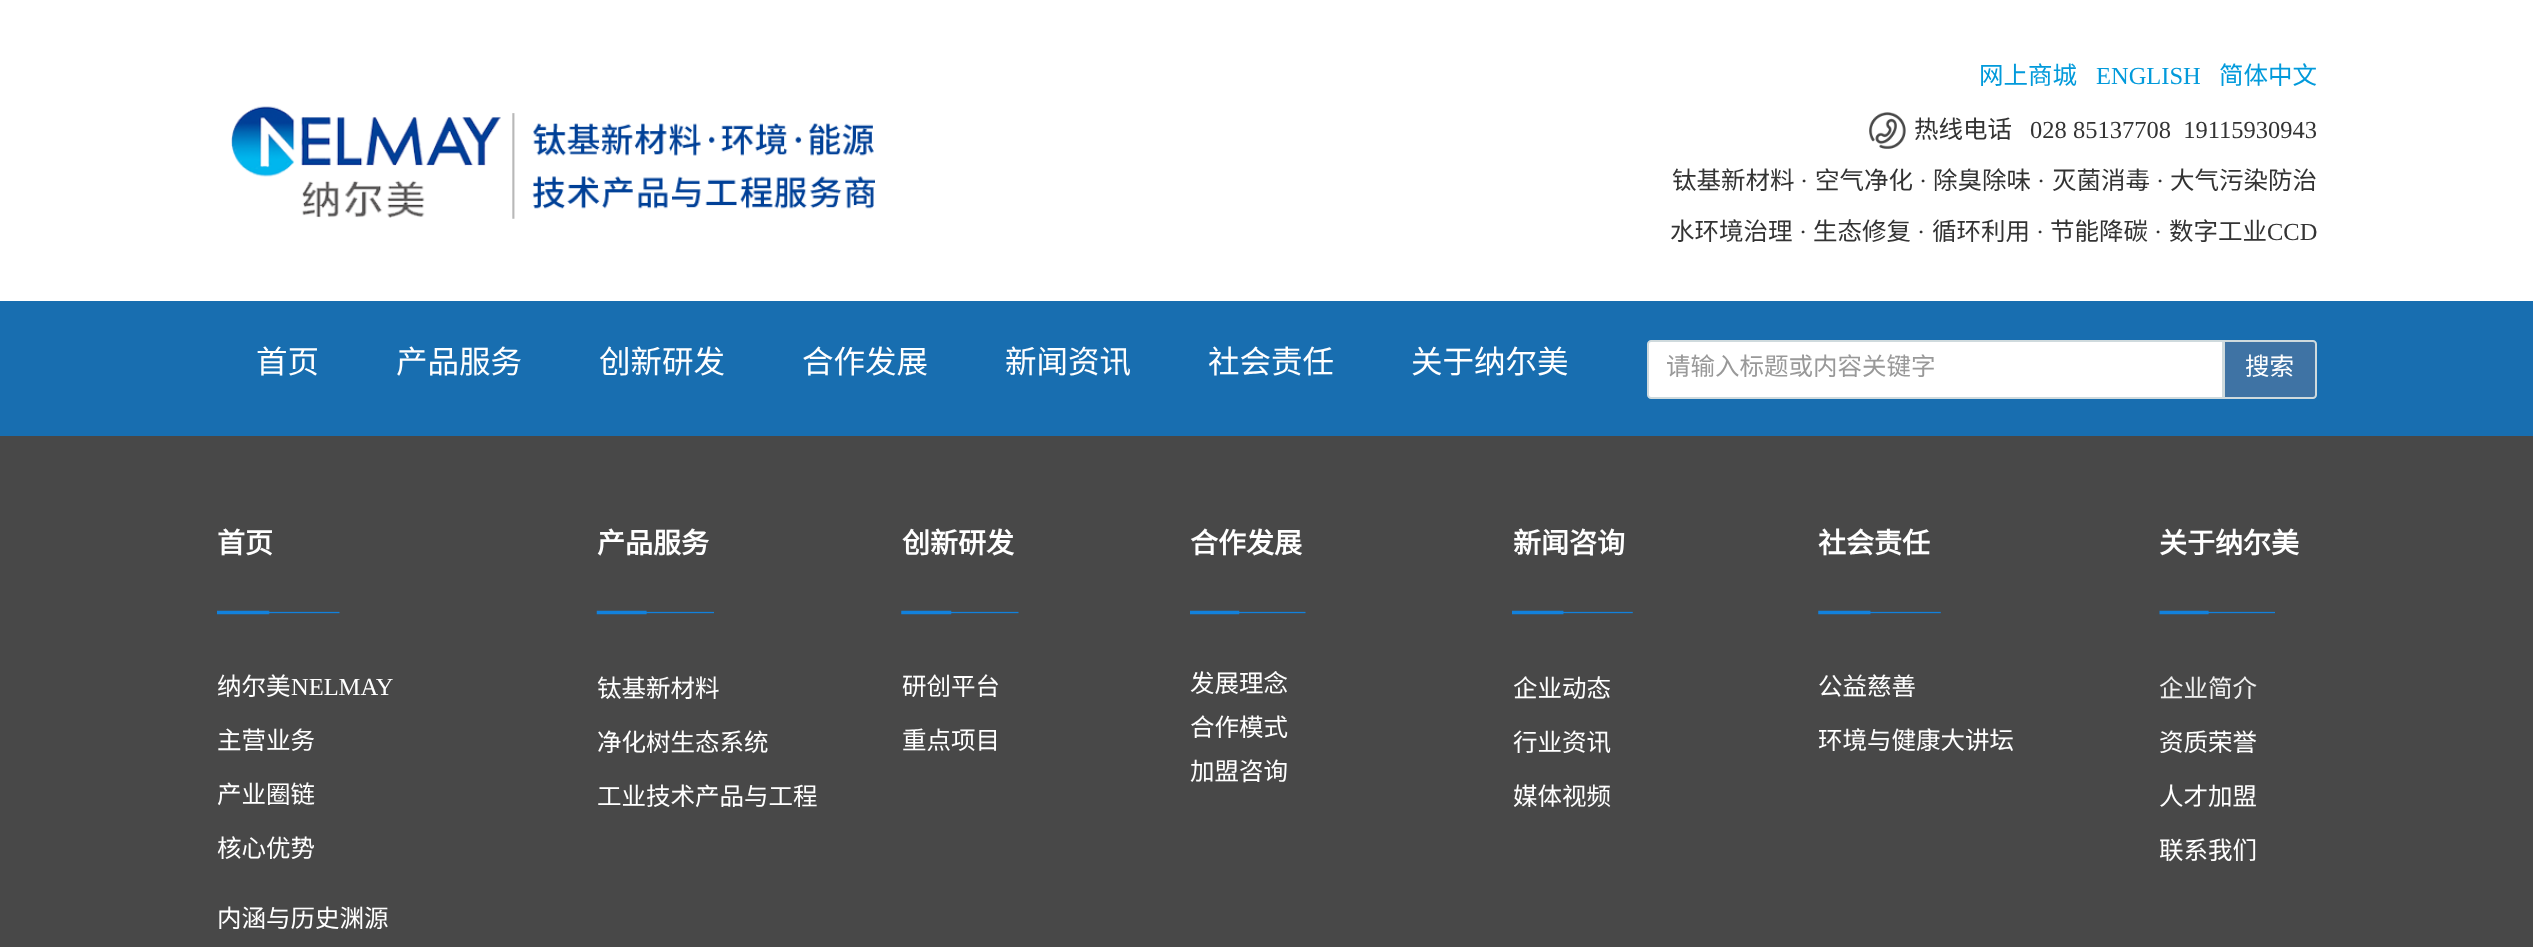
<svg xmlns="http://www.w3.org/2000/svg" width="2533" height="947">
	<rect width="100%" height="100%" fill="#FFFFFF" />
	<image x="231" y="106" width="644" height="113" href="assets/img1.png" />
	<text x="1979" y="84" font-family="Noto Sans CJK SC" font-size="24.5" fill="#029ADB">网上商城</text>
	<text x="2096" y="84" font-family="Liberation Serif" font-size="24.5" fill="#029ADB">ENGLISH</text>
	<text x="2219" y="84" font-family="Noto Sans CJK SC" font-size="24.5" fill="#029ADB">简体中文</text>
	<image x="1869" y="112" width="37" height="37" href="assets/img2.png" />
	<text x="1914" y="138" font-family="Noto Sans CJK SC" font-size="24.5" fill="#333333">热线电话</text>
	<text x="2030" y="138" font-family="Liberation Serif" font-size="24.5" fill="#333333" xml:space="preserve">028 85137708  19115930943</text>
	<text x="1672" y="189" font-family="Noto Sans CJK SC" font-size="24.5" fill="#333333">钛基新材料</text>
	<text x="1800" y="189" font-family="Liberation Serif" font-size="24.5" fill="#333333">·</text>
	<text x="1815" y="189" font-family="Noto Sans CJK SC" font-size="24.5" fill="#333333">空气净化</text>
	<text x="1919" y="189" font-family="Liberation Serif" font-size="24.5" fill="#333333">·</text>
	<text x="1933" y="189" font-family="Noto Sans CJK SC" font-size="24.5" fill="#333333">除臭除味</text>
	<text x="2037" y="189" font-family="Liberation Serif" font-size="24.5" fill="#333333">·</text>
	<text x="2052" y="189" font-family="Noto Sans CJK SC" font-size="24.5" fill="#333333">灭菌消毒</text>
	<text x="2156" y="189" font-family="Liberation Serif" font-size="24.5" fill="#333333">·</text>
	<g font-family="Noto Sans CJK SC" font-size="24.5" fill="#333333">
		<text x="2170" y="189">大气污染防治</text>
		<text x="1670" y="240">水环境治理</text>
	</g>
	<text x="1799" y="240" font-family="Liberation Serif" font-size="24.5" fill="#333333">·</text>
	<text x="1813" y="240" font-family="Noto Sans CJK SC" font-size="24.5" fill="#333333">生态修复</text>
	<text x="1917" y="240" font-family="Liberation Serif" font-size="24.5" fill="#333333">·</text>
	<text x="1932" y="240" font-family="Noto Sans CJK SC" font-size="24.5" fill="#333333">循环利用</text>
	<text x="2036" y="240" font-family="Liberation Serif" font-size="24.5" fill="#333333">·</text>
	<text x="2050" y="240" font-family="Noto Sans CJK SC" font-size="24.5" fill="#333333">节能降碳</text>
	<text x="2154" y="240" font-family="Liberation Serif" font-size="24.5" fill="#333333">·</text>
	<text x="2169" y="240" font-family="Noto Sans CJK SC" font-size="24.5" fill="#333333">数字工业</text>
	<text x="2267" y="240" font-family="Liberation Serif" font-size="24.5" fill="#333333">CCD</text>
	<rect x="0" y="301" width="2533" height="135" fill="#186EB0" />
	<g font-family="Noto Sans CJK SC" font-size="31.5" fill="#FFFFFF">
		<text x="256" y="373">首页</text>
		<text x="396" y="373">产品服务</text>
		<text x="599" y="373">创新研发</text>
		<text x="802" y="373">合作发展</text>
		<text x="1005" y="373">新闻资讯</text>
		<text x="1208" y="373">社会责任</text>
		<text x="1411" y="373">关于纳尔美</text>
	</g>
	<path d="M1651 341H2223V398H1651C1649.5 398 1648 396.5 1648 395V344C1648 342.5 1649.5 341 1651 341Z" fill="#FFFFFF" stroke="#CFDADD" stroke-width="2" />
	<text x="1666" y="375" font-family="Noto Sans CJK SC" font-size="24.5" fill="#999999">请输入标题或内容关键字</text>
	<path d="M2224 341H2313C2314.5 341 2316 342.5 2316 344V395C2316 396.5 2314.5 398 2313 398H2224Z" fill="#3F73A4" stroke="#CFDADD" stroke-width="2" />
	<text x="2245" y="375" font-family="Noto Sans CJK SC" font-size="24.5" fill="#FFFFFF">搜索</text>
	<rect x="0" y="436" width="2533" height="511" fill="#484848" />
	<text x="217" y="553" font-family="Noto Sans CJK SC" font-size="28" font-weight="700" fill="#FFFFFF">首页</text>
	<image x="217" y="610" width="123" height="5" href="assets/img3.png" />
	<text x="217" y="695" font-family="Noto Sans CJK SC" font-size="24.5" fill="#FFFFFF">纳尔美</text>
	<text x="291" y="695" font-family="Liberation Serif" font-size="24.5" fill="#FFFFFF">NELMAY</text>
	<g font-family="Noto Sans CJK SC" font-size="24.5" fill="#FFFFFF">
		<text x="217" y="749">主营业务</text>
		<text x="217" y="803">产业圈链</text>
		<text x="217" y="857">核心优势</text>
		<text x="217" y="927">内涵与历史渊源</text>
	</g>
	<text x="597" y="553" font-family="Noto Sans CJK SC" font-size="28" font-weight="700" fill="#FFFFFF">产品服务</text>
	<image x="596" y="610" width="118" height="5" href="assets/img4.png" />
	<g font-family="Noto Sans CJK SC" font-size="24.5" fill="#FFFFFF">
		<text x="597" y="697">钛基新材料</text>
		<text x="597" y="751">净化树生态系统</text>
		<text x="597" y="805">工业技术产品与工程</text>
	</g>
	<text x="902" y="553" font-family="Noto Sans CJK SC" font-size="28" font-weight="700" fill="#FFFFFF">创新研发</text>
	<image x="901" y="610" width="118" height="5" href="assets/img5.png" />
	<g font-family="Noto Sans CJK SC" font-size="24.5" fill="#FFFFFF">
		<text x="902" y="695">研创平台</text>
		<text x="902" y="749">重点项目</text>
	</g>
	<text x="1190" y="553" font-family="Noto Sans CJK SC" font-size="28" font-weight="700" fill="#FFFFFF">合作发展</text>
	<image x="1190" y="610" width="116" height="5" href="assets/img6.png" />
	<g font-family="Noto Sans CJK SC" font-size="24.5" fill="#FFFFFF">
		<text x="1190" y="692">发展理念</text>
		<text x="1190" y="736">合作模式</text>
		<text x="1190" y="780">加盟咨询</text>
	</g>
	<text x="1513" y="553" font-family="Noto Sans CJK SC" font-size="28" font-weight="700" fill="#FFFFFF">新闻咨询</text>
	<image x="1512" y="610" width="121" height="5" href="assets/img7.png" />
	<g font-family="Noto Sans CJK SC" font-size="24.5" fill="#FFFFFF">
		<text x="1513" y="697">企业动态</text>
		<text x="1513" y="751">行业资讯</text>
		<text x="1513" y="805">媒体视频</text>
	</g>
	<text x="1818" y="553" font-family="Noto Sans CJK SC" font-size="28" font-weight="700" fill="#FFFFFF">社会责任</text>
	<image x="1818" y="610" width="123" height="5" href="assets/img8.png" />
	<g font-family="Noto Sans CJK SC" font-size="24.5" fill="#FFFFFF">
		<text x="1818" y="695">公益慈善</text>
		<text x="1818" y="749">环境与健康大讲坛</text>
	</g>
	<text x="2159" y="553" font-family="Noto Sans CJK SC" font-size="28" font-weight="700" fill="#FFFFFF">关于纳尔美</text>
	<image x="2159" y="610" width="116" height="5" href="assets/img9.png" />
	<text x="2159" y="697" font-family="Noto Sans CJK SC" font-size="24.5" fill="#EFEFEF">企业简介</text>
	<g font-family="Noto Sans CJK SC" font-size="24.5" fill="#FFFFFF">
		<text x="2159" y="751">资质荣誉</text>
		<text x="2159" y="805">人才加盟</text>
		<text x="2159" y="859">联系我们</text>
	</g>
</svg>
